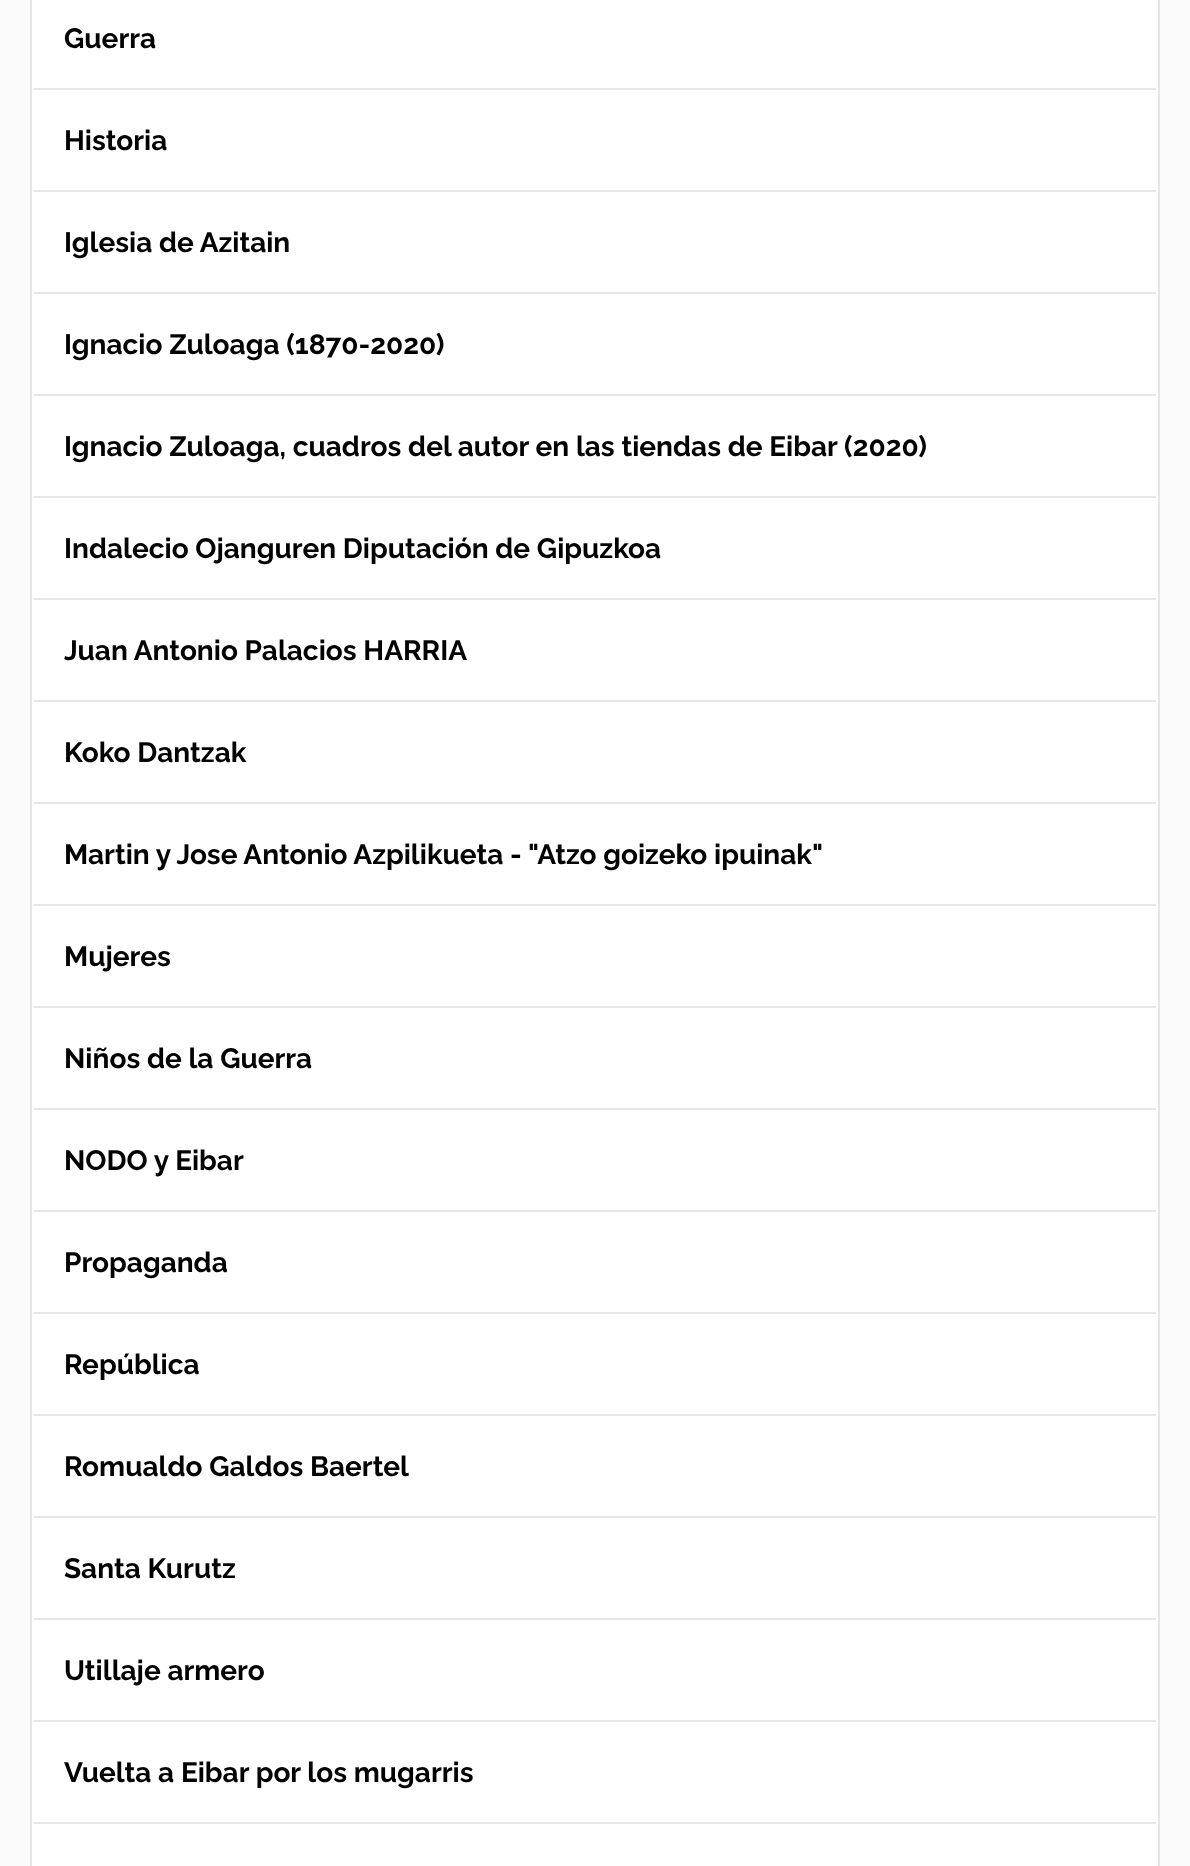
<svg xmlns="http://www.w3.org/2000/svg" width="1190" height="1866">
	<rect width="100%" height="100%" fill="#FBFBFB" />
	<rect x="31" y="-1" width="1128" height="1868" fill="#FFFFFF" stroke="#E6E6E6" stroke-width="2" />
	<text x="64" y="48" font-family="Raleway" font-size="28" font-weight="700" fill="#010101">Guerra</text>
	<rect x="34" y="88" width="1122" height="2" fill="#E6E6E6" />
	<text x="64" y="150" font-family="Raleway" font-size="28" font-weight="700" fill="#010101">Historia</text>
	<rect x="34" y="190" width="1122" height="2" fill="#E6E6E6" />
	<text x="64" y="252" font-family="Raleway" font-size="28" font-weight="700" fill="#010101">Iglesia de Azitain</text>
	<rect x="34" y="292" width="1122" height="2" fill="#E6E6E6" />
	<text x="64" y="354" font-family="Raleway" font-size="28" font-weight="700" fill="#010101">Ignacio Zuloaga (1870-2020)</text>
	<rect x="34" y="394" width="1122" height="2" fill="#E6E6E6" />
	<text x="64" y="456" font-family="Raleway" font-size="28" font-weight="700" fill="#010101">Ignacio Zuloaga, cuadros del autor en las tiendas de Eibar (2020)</text>
	<rect x="34" y="496" width="1122" height="2" fill="#E6E6E6" />
	<text x="64" y="558" font-family="Raleway" font-size="28" font-weight="700" fill="#010101">Indalecio Ojanguren Diputación de Gipuzkoa</text>
	<rect x="34" y="598" width="1122" height="2" fill="#E6E6E6" />
	<text x="64" y="660" font-family="Raleway" font-size="28" font-weight="700" fill="#010101">Juan Antonio Palacios HARRIA</text>
	<rect x="34" y="700" width="1122" height="2" fill="#E6E6E6" />
	<text x="64" y="762" font-family="Raleway" font-size="28" font-weight="700" fill="#010101">Koko Dantzak</text>
	<rect x="34" y="802" width="1122" height="2" fill="#E6E6E6" />
	<text x="64" y="864" font-family="Raleway" font-size="28" font-weight="700" fill="#010101">Martin y Jose Antonio Azpilikueta - "Atzo goizeko ipuinak"</text>
	<rect x="34" y="904" width="1122" height="2" fill="#E6E6E6" />
	<text x="64" y="966" font-family="Raleway" font-size="28" font-weight="700" fill="#010101">Mujeres</text>
	<rect x="34" y="1006" width="1122" height="2" fill="#E6E6E6" />
	<text x="64" y="1068" font-family="Raleway" font-size="28" font-weight="700" fill="#010101">Niños de la Guerra</text>
	<rect x="34" y="1108" width="1122" height="2" fill="#E6E6E6" />
	<text x="64" y="1170" font-family="Raleway" font-size="28" font-weight="700" fill="#010101">NODO y Eibar</text>
	<rect x="34" y="1210" width="1122" height="2" fill="#E6E6E6" />
	<text x="64" y="1272" font-family="Raleway" font-size="28" font-weight="700" fill="#010101">Propaganda</text>
	<rect x="34" y="1312" width="1122" height="2" fill="#E6E6E6" />
	<text x="64" y="1374" font-family="Raleway" font-size="28" font-weight="700" fill="#010101">República</text>
	<rect x="34" y="1414" width="1122" height="2" fill="#E6E6E6" />
	<text x="64" y="1476" font-family="Raleway" font-size="28" font-weight="700" fill="#010101">Romualdo Galdos Baertel</text>
	<rect x="34" y="1516" width="1122" height="2" fill="#E6E6E6" />
	<text x="64" y="1578" font-family="Raleway" font-size="28" font-weight="700" fill="#010101">Santa Kurutz</text>
	<rect x="34" y="1618" width="1122" height="2" fill="#E6E6E6" />
	<text x="64" y="1680" font-family="Raleway" font-size="28" font-weight="700" fill="#010101">Utillaje armero</text>
	<rect x="34" y="1720" width="1122" height="2" fill="#E6E6E6" />
	<text x="64" y="1782" font-family="Raleway" font-size="28" font-weight="700" fill="#010101">Vuelta a Eibar por los mugarris</text>
	<rect x="34" y="1822" width="1122" height="2" fill="#E6E6E6" />
</svg>
